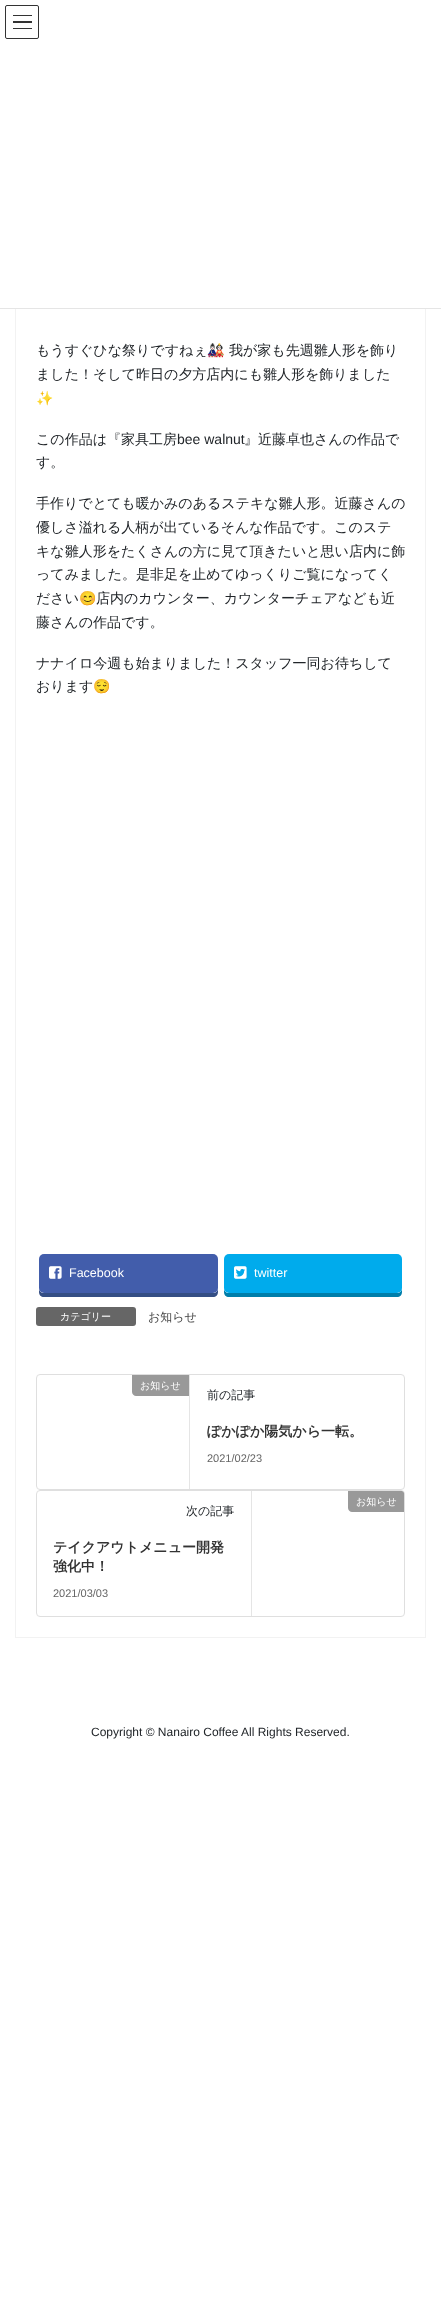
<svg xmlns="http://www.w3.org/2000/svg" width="441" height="2309">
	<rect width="100%" height="100%" fill="#FFFFFF" />
	<rect x="13" y="15" width="19" height="1" fill="#333333" />
	<rect x="13" y="21" width="19" height="2" fill="#333333" />
	<rect x="13" y="28" width="19" height="1" fill="#333333" />
	<rect x="5.5" y="5.5" width="33" height="33" rx="1.5" fill="none" stroke="#333333" />
	<rect x="15.5" y="210.5" width="410" height="1427" fill="none" stroke="#000000" stroke-opacity="0.05" />
	<rect x="15" y="210" width="411" height="98" fill="#FFFFFF" />
	<rect x="0" y="308" width="441" height="1" fill="#E5E5E5" />
	<text x="36" y="355" font-family="WenQuanYi Zen Hei" font-size="14" font-weight="500" fill="#212529">もうすぐひな祭りですねぇ</text>
	<text x="207" y="355" font-family="Noto Color Emoji" font-size="14" fill="#212529">🎎</text>
	<g font-family="WenQuanYi Zen Hei" font-size="14" font-weight="500" fill="#212529">
		<text x="229" y="355">我が家も先週雛人形を飾り</text>
		<text x="36" y="379">ました！そして昨日の夕方店内にも雛人形を飾りました</text>
	</g>
	<text x="36" y="403" font-family="Noto Color Emoji" font-size="14" fill="#212529">✨</text>
	<text x="36" y="444" font-family="WenQuanYi Zen Hei" font-size="14" font-weight="500" fill="#212529">この作品は『家具工房</text>
	<text x="177" y="444" font-family="Liberation Sans" font-size="14" fill="#212529">bee walnut</text>
	<g font-family="WenQuanYi Zen Hei" font-size="14" font-weight="500" fill="#212529">
		<text x="244" y="444">』近藤卓也さんの作品で</text>
		<text x="36" y="467">す。</text>
		<text x="36" y="508">手作りでとても暖かみのあるステキな雛人形。近藤さんの</text>
		<text x="36" y="532">優しさ溢れる人柄が出ているそんな作品です。このステ</text>
		<text x="36" y="556">キな雛人形をたくさんの方に見て頂きたいと思い店内に飾</text>
		<text x="36" y="579">ってみました。是非足を止めてゆっくりご覧になってく</text>
		<text x="36" y="603">ださい</text>
	</g>
	<text x="79" y="603" font-family="Noto Color Emoji" font-size="14" fill="#212529">😊</text>
	<g font-family="WenQuanYi Zen Hei" font-size="14" font-weight="500" fill="#212529">
		<text x="96" y="603">店内のカウンター、カウンターチェアなども近</text>
		<text x="36" y="627">藤さんの作品です。</text>
		<text x="36" y="668">ナナイロ今週も始まりました！スタッフ一同お待ちして</text>
		<text x="36" y="691">おります</text>
	</g>
	<text x="93" y="691" font-family="Noto Color Emoji" font-size="14" fill="#212529">😌</text>
	<path d="M39 1288V1292C39 1295 41 1297 44 1297H213C216 1297 218 1295 218 1292V1288C218 1291 216 1293 213 1293H44C41 1293 39 1291 39 1288Z" fill="#344E84" />
	<rect x="39" y="1254" width="179" height="39" rx="5" fill="#425DAB" />
	<image x="49" y="1266" width="13" height="13" href="assets/img1.png" />
	<text x="69" y="1277" font-family="Liberation Sans" font-size="12.5" fill="#FFFFFF">Facebook</text>
	<path d="M224 1288V1292C224 1295 226 1297 229 1297H397C400 1297 402 1295 402 1292V1288C402 1291 400 1293 397 1293H229C226 1293 224 1291 224 1288Z" fill="#007EAA" />
	<rect x="224" y="1254" width="178" height="39" rx="5" fill="#00ABEC" />
	<image x="234" y="1266" width="13" height="13" href="assets/img2.png" />
	<text x="254" y="1277" font-family="Liberation Sans" font-size="12.5" fill="#FFFFFF">twitter</text>
	<rect x="36" y="1307" width="100" height="19" rx="3" fill="#666666" />
	<text x="60" y="1320" font-family="WenQuanYi Zen Hei" font-size="10" font-weight="500" fill="#FFFFFF">カテゴリー</text>
	<text x="148" y="1321" font-family="WenQuanYi Zen Hei" font-size="12" font-weight="500" fill="#464646">お知らせ</text>
	<rect x="36.5" y="1374.5" width="368" height="115" rx="3.5" fill="none" stroke="#DFDFDF" />
	<rect x="189" y="1375" width="1" height="114" fill="#E5E5E5" />
	<path d="M132 1375H189V1396H136C134 1396 132 1394 132 1392Z" fill="#999999" />
	<text x="140" y="1389" font-family="WenQuanYi Zen Hei" font-size="10" font-weight="500" fill="#FFFFFF">お知らせ</text>
	<text x="207" y="1399" font-family="WenQuanYi Zen Hei" font-size="12" font-weight="500" fill="#212529">前の記事</text>
	<text x="207" y="1436" font-family="WenQuanYi Zen Hei" font-size="14" font-weight="700" fill="#333333">ぽかぽか陽気から一転。</text>
	<text x="207" y="1462" font-family="Liberation Sans" font-size="11" fill="#666666">2021/02/23</text>
	<rect x="36.5" y="1490.5" width="368" height="126" rx="3.5" fill="none" stroke="#DFDFDF" />
	<rect x="251" y="1491" width="1" height="125" fill="#E5E5E5" />
	<path d="M348 1491H401.5C403 1491 404 1492 404 1493.5V1512H352C350 1512 348 1510 348 1508Z" fill="#999999" />
	<text x="356" y="1505" font-family="WenQuanYi Zen Hei" font-size="10" font-weight="500" fill="#FFFFFF">お知らせ</text>
	<text x="186" y="1515" font-family="WenQuanYi Zen Hei" font-size="12" font-weight="500" fill="#212529">次の記事</text>
	<g font-family="WenQuanYi Zen Hei" font-size="14" font-weight="700" fill="#333333">
		<text x="53" y="1552">テイクアウトメニュー開発</text>
		<text x="53" y="1571">強化中！</text>
	</g>
	<text x="53" y="1597" font-family="Liberation Sans" font-size="11" fill="#666666">2021/03/03</text>
	<text x="91" y="1736" font-family="Liberation Sans" font-size="12" fill="#212529">Copyright © Nanairo Coffee All Rights Reserved.</text>
</svg>
